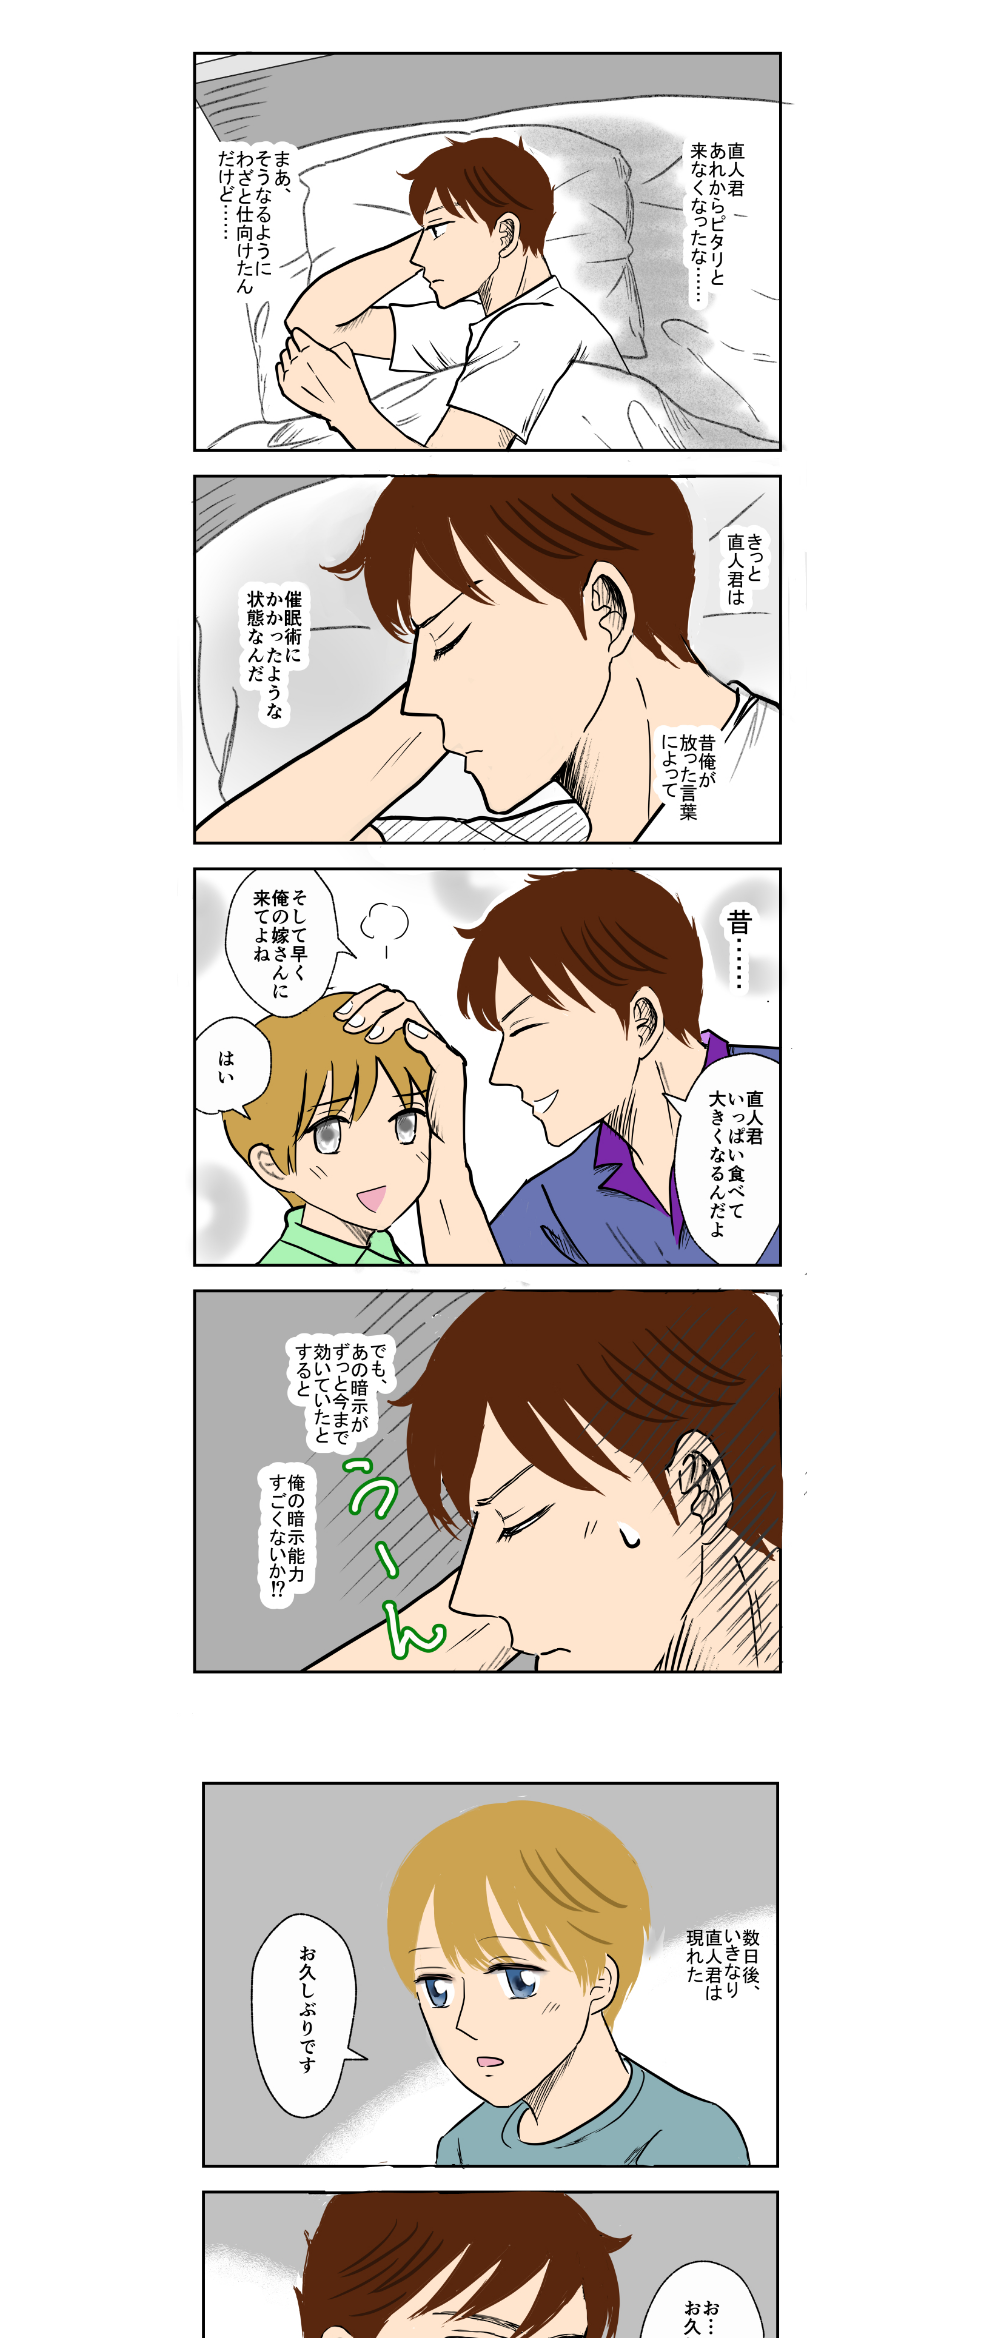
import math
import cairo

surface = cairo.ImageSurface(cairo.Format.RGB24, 984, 2338)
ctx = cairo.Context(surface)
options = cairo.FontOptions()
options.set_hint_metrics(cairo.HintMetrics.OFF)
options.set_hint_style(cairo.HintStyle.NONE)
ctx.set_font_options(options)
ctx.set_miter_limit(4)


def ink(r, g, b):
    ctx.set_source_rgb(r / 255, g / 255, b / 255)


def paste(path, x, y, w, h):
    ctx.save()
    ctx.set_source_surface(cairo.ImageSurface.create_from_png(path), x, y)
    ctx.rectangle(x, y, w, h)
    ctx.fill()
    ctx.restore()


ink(255, 255, 255)
ctx.paint()
paste("pic1.png", 177, 51, 630, 1623)
paste("pic2.png", 177, 1713, 603, 625)
surface.write_to_png("screenshot.png")
